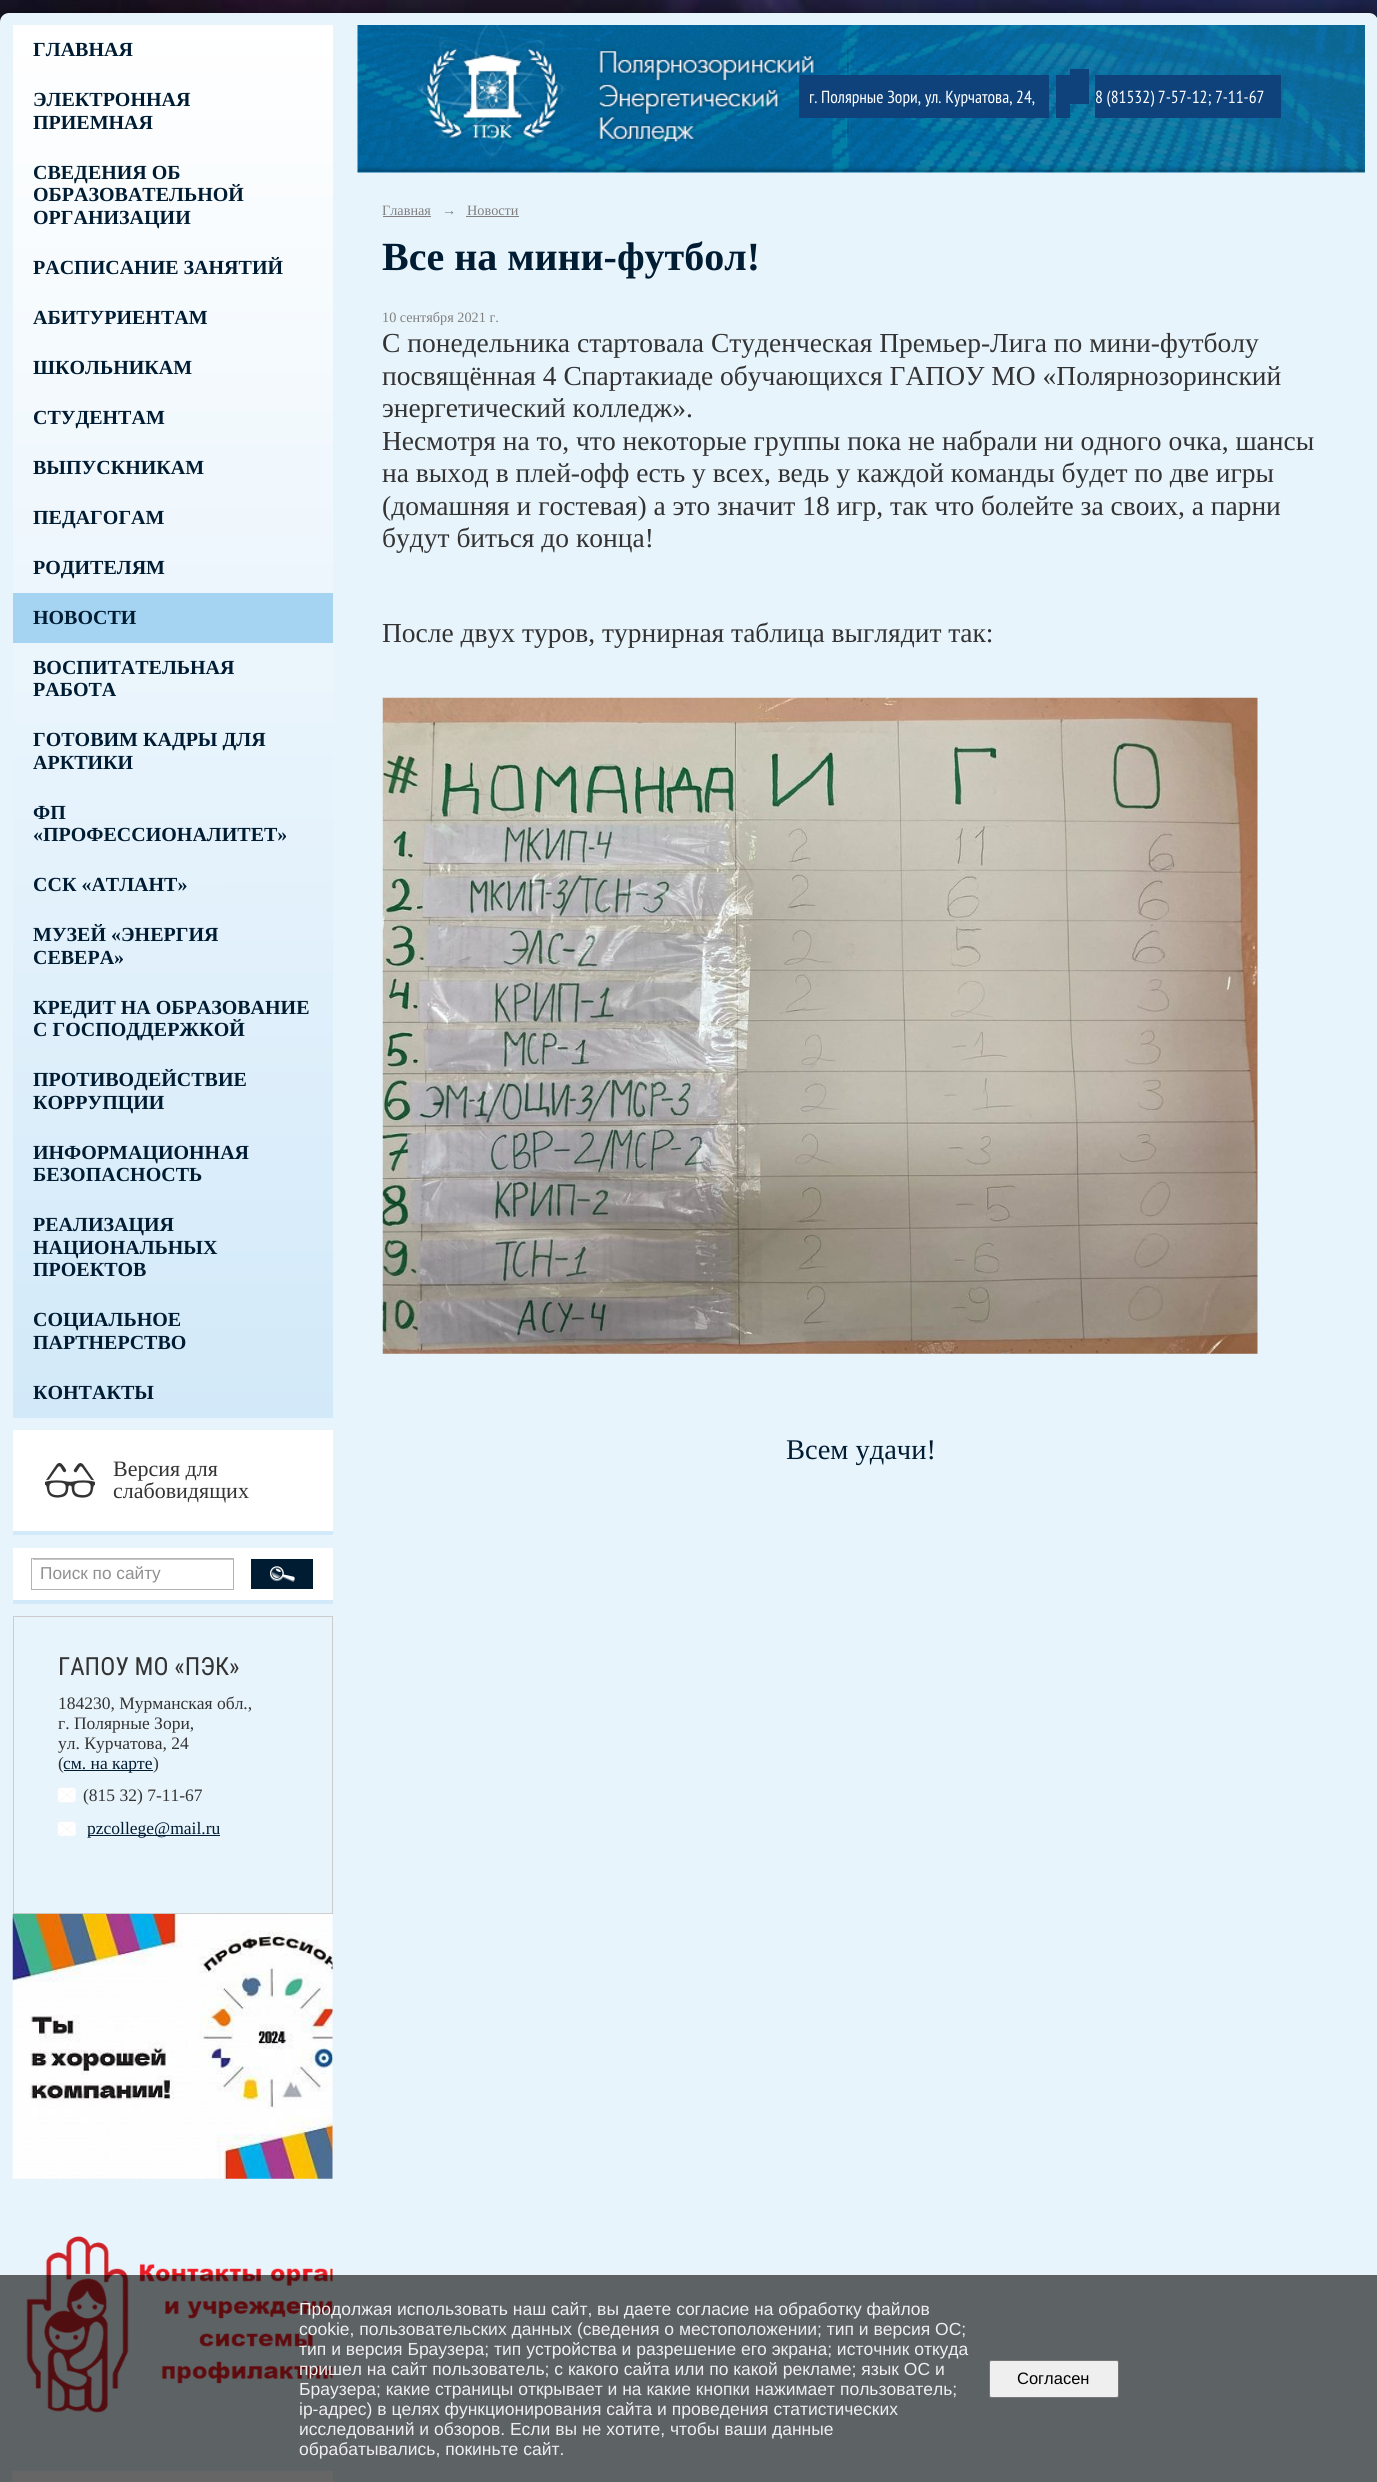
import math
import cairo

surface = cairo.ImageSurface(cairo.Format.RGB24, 1377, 2482)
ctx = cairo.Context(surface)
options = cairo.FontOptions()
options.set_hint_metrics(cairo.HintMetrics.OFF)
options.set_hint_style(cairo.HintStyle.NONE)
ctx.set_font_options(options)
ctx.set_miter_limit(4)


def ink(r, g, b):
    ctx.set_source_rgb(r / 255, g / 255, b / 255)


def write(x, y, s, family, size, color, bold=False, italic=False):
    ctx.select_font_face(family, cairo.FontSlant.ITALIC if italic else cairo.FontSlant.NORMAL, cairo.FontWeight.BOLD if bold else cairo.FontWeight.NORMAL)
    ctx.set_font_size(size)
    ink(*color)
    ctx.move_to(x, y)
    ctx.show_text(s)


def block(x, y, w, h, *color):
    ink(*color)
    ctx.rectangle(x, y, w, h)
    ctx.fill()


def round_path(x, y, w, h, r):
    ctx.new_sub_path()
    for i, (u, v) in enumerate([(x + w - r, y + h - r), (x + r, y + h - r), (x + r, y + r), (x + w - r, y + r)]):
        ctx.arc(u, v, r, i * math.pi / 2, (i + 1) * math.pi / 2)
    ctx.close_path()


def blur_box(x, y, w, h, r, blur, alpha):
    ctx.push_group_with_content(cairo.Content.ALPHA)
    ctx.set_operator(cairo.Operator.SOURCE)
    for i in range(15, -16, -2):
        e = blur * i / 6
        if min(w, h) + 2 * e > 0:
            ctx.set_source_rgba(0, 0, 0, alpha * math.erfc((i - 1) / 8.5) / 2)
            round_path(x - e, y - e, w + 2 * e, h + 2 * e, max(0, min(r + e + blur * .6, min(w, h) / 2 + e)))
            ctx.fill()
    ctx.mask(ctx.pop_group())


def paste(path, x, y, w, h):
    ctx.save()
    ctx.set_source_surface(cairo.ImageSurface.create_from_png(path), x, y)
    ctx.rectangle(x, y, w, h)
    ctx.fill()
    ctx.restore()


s1 = dict(family="Liberation Serif", size=20, color=(0, 28, 51), bold=True)
s2 = dict(family="Liberation Serif", size=22, color=(51, 51, 51))
s3 = dict(family="Liberation Sans", size=17.25, color=(144, 144, 144))
s4 = dict(family="Roboto Condensed", size=25, color=(51, 51, 51))
s5 = dict(family="Liberation Serif", size=17.5, color=(51, 51, 51))
s6 = dict(family="Liberation Serif", size=17.5, color=(0, 28, 51))
s7 = dict(family="PT Sans Narrow", size=17.5, color=(255, 255, 255))
s8 = dict(family="Liberation Serif", size=14.25, color=(128, 128, 128))
s9 = dict(family="Liberation Serif", size=14.25, color=(128, 128, 128), italic=True)
s10 = dict(family="Liberation Serif", size=40, color=(0, 28, 51), bold=True)
s11 = dict(family="Liberation Serif", size=27.5, color=(51, 51, 51))
s12 = dict(family="Liberation Serif", size=28.5, color=(0, 28, 51))
s13 = dict(family="Liberation Sans", size=17.5, color=(239, 239, 239))
s14 = dict(family="Liberation Sans", size=16.5, color=(0, 0, 0))

ink(255, 255, 255)
ctx.paint()
paste("pic1.png", 0, 0, 1377, 22)
ink(0, 0, 0)
blur_box(0, 13, 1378, 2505, 9, 9, 0.5)
ink(232, 244, 252)
round_path(0, 13, 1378, 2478, 9)
ctx.fill()
gradient = cairo.LinearGradient(172, 25, 173, 1418)
gradient.add_color_stop_rgba(0, 1, 1, 1, 1)
gradient.add_color_stop_rgba(1, 0.824, 0.914, 0.976, 1)
ctx.set_source(gradient)
ctx.rectangle(13, 25, 320, 1393)
ctx.fill()
write(33, 56, "ГЛАВНАЯ", **s1)
write(33, 106, "ЭЛЕКТРОННАЯ", **s1)
write(33, 129, "ПРИЕМНАЯ", **s1)
write(33, 179, "СВЕДЕНИЯ ОБ", **s1)
write(33, 201, "ОБРАЗОВАТЕЛЬНОЙ", **s1)
write(33, 224, "ОРГАНИЗАЦИИ", **s1)
write(33, 274, "РАСПИСАНИЕ ЗАНЯТИЙ", **s1)
write(33, 324, "АБИТУРИЕНТАМ", **s1)
write(33, 374, "ШКОЛЬНИКАМ", **s1)
write(33, 424, "СТУДЕНТАМ", **s1)
write(33, 474, "ВЫПУСКНИКАМ", **s1)
write(33, 524, "ПЕДАГОГАМ", **s1)
write(33, 574, "РОДИТЕЛЯМ", **s1)
block(13, 593, 320, 50, 165, 212, 243)
write(33, 624, "НОВОСТИ", **s1)
write(33, 674, "ВОСПИТАТЕЛЬНАЯ", **s1)
write(33, 696, "РАБОТА", **s1)
write(33, 746, "ГОТОВИМ КАДРЫ ДЛЯ", **s1)
write(33, 769, "АРКТИКИ", **s1)
write(33, 819, "ФП", **s1)
write(33, 841, "«ПРОФЕССИОНАЛИТЕТ»", **s1)
write(33, 891, "ССК «АТЛАНТ»", **s1)
write(33, 941, "МУЗЕЙ «ЭНЕРГИЯ", **s1)
write(33, 964, "СЕВЕРА»", **s1)
write(33, 1014, "КРЕДИТ НА ОБРАЗОВАНИЕ", **s1)
write(33, 1036, "С ГОСПОДДЕРЖКОЙ", **s1)
write(33, 1086, "ПРОТИВОДЕЙСТВИЕ", **s1)
write(33, 1109, "КОРРУПЦИИ", **s1)
write(33, 1159, "ИНФОРМАЦИОННАЯ", **s1)
write(33, 1181, "БЕЗОПАСНОСТЬ", **s1)
write(33, 1231, "РЕАЛИЗАЦИЯ", **s1)
write(33, 1254, "НАЦИОНАЛЬНЫХ", **s1)
write(33, 1276, "ПРОЕКТОВ", **s1)
write(33, 1326, "СОЦИАЛЬНОЕ", **s1)
write(33, 1349, "ПАРТНЕРСТВО", **s1)
write(33, 1399, "КОНТАКТЫ", **s1)
block(13, 1430, 320, 101, 255, 255, 255)
paste("pic2.png", 45, 1463, 50, 35)
block(13, 1531, 320, 4, 210, 233, 249)
write(113, 1476, "Версия для", **s2)
write(113, 1498, "слабовидящих", **s2)
block(13, 1548, 320, 52, 255, 255, 255)
block(13, 1600, 320, 4, 210, 233, 249)
block(33, 1559, 200, 1, 198, 198, 198)
ctx.rectangle(31.5, 1558.5, 202, 31)
ink(179, 179, 179)
ctx.set_line_width(1)
ctx.stroke()
write(40, 1579, "Поиск по сайту", **s3)
block(251, 1559, 62, 30, 0, 28, 51)
paste("pic3.png", 270, 1566, 25, 16)
ctx.rectangle(13.5, 1616.5, 319, 297)
ink(204, 204, 204)
ctx.stroke()
write(58, 1675, "ГАПОУ МО «ПЭК»", **s4)
write(58, 1709, "184230, Мурманская обл.,", **s5)
write(58, 1729, "г. Полярные Зори,", **s5)
write(58, 1749, "ул. Курчатова, 24", **s5)
write(58, 1769, "(", **s5)
block(64, 1770, 89, 1, 0, 28, 51)
write(63, 1769, "см. на карте", **s6)
write(153, 1769, ")", **s5)
paste("pic4.png", 57, 1787, 19, 16)
write(83, 1801, "(815 32) 7-11-67", **s5)
paste("pic5.png", 57, 1821, 19, 15)
block(88, 1835, 132, 1, 0, 28, 51)
write(87, 1834, "pzcollege@mail.ru", **s6)
paste("pic6.png", 12, 1913, 321, 266)
paste("pic7.png", 26, 2236, 307, 177)
block(12, 2471, 321, 11, 255, 255, 255)
paste("pic8.png", 357, 25, 1008, 148)
block(799, 75, 250, 43, 15, 66, 123)
write(809, 103, "г. Полярные Зори, ул. Курчатова, 24,", **s7)
block(1056, 75, 14, 43, 15, 66, 123)
block(1095, 75, 186, 43, 15, 66, 123)
write(1095, 103, "8 (81532) 7-57-12; 7-11-67", **s7)
block(1070, 69, 19, 35, 15, 66, 123)
write(382, 215, "Главная", **s8)
block(383, 216, 48, 1, 128, 128, 128)
write(442, 215, "→", **s9)
write(467, 215, "Новости", **s8)
block(466, 216, 53, 1, 128, 128, 128)
write(382, 270, "Все на мини-футбол!", **s10)
write(382, 322, "10 сентября 2021 г.", **s8)
write(382, 352, "С понедельника стартовала Студенческая Премьер-Лига по мини-футболу", **s11)
write(382, 385, "посвящённая 4 Спартакиаде обучающихся ГАПОУ МО «Полярнозоринский", **s11)
write(382, 417, "энергетический колледж».", **s11)
write(382, 450, "Несмотря на то, что некоторые группы пока не набрали ни одного очка, шансы", **s11)
write(382, 482, "на выход в плей-офф есть у всех, ведь у каждой команды будет по две игры", **s11)
write(382, 515, "(домашняя и гостевая) а это значит 18 игр, так что болейте за своих, а парни", **s11)
write(382, 547, "будут биться до конца!", **s11)
write(382, 642, "После двух туров, турнирная таблица выглядит так:", **s11)
paste("pic9.png", 382, 697, 876, 657)
write(786, 1459, "Всем удачи!", **s12)
ctx.set_source_rgba(0, 0, 0, 0.6)
ctx.rectangle(0, 2275, 1377, 207)
ctx.fill()
write(299, 2315, "Продолжая использовать наш сайт, вы даете согласие на обработку файлов", **s13)
write(299, 2335, "cookie, пользовательских данных (сведения о местоположении; тип и версия ОС;", **s13)
write(299, 2355, "тип и версия Браузера; тип устройства и разрешение его экрана; источник откуда", **s13)
write(299, 2375, "пришел на сайт пользователь; с какого сайта или по какой рекламе; язык ОС и", **s13)
write(299, 2395, "Браузера; какие страницы открывает и на какие кнопки нажимает пользователь;", **s13)
write(299, 2415, "ip-адрес) в целях функционирования сайта и проведения статистических", **s13)
write(299, 2435, "исследований и обзоров. Если вы не хотите, чтобы ваши данные", **s13)
write(299, 2455, "обрабатывались, покиньте сайт.", **s13)
round_path(989.5, 2360.5, 129, 37, 2)
ctx.fill_preserve()
ink(118, 118, 118)
ctx.stroke()
write(1017, 2384, "Согласен", **s14)
surface.write_to_png("screenshot.png")
